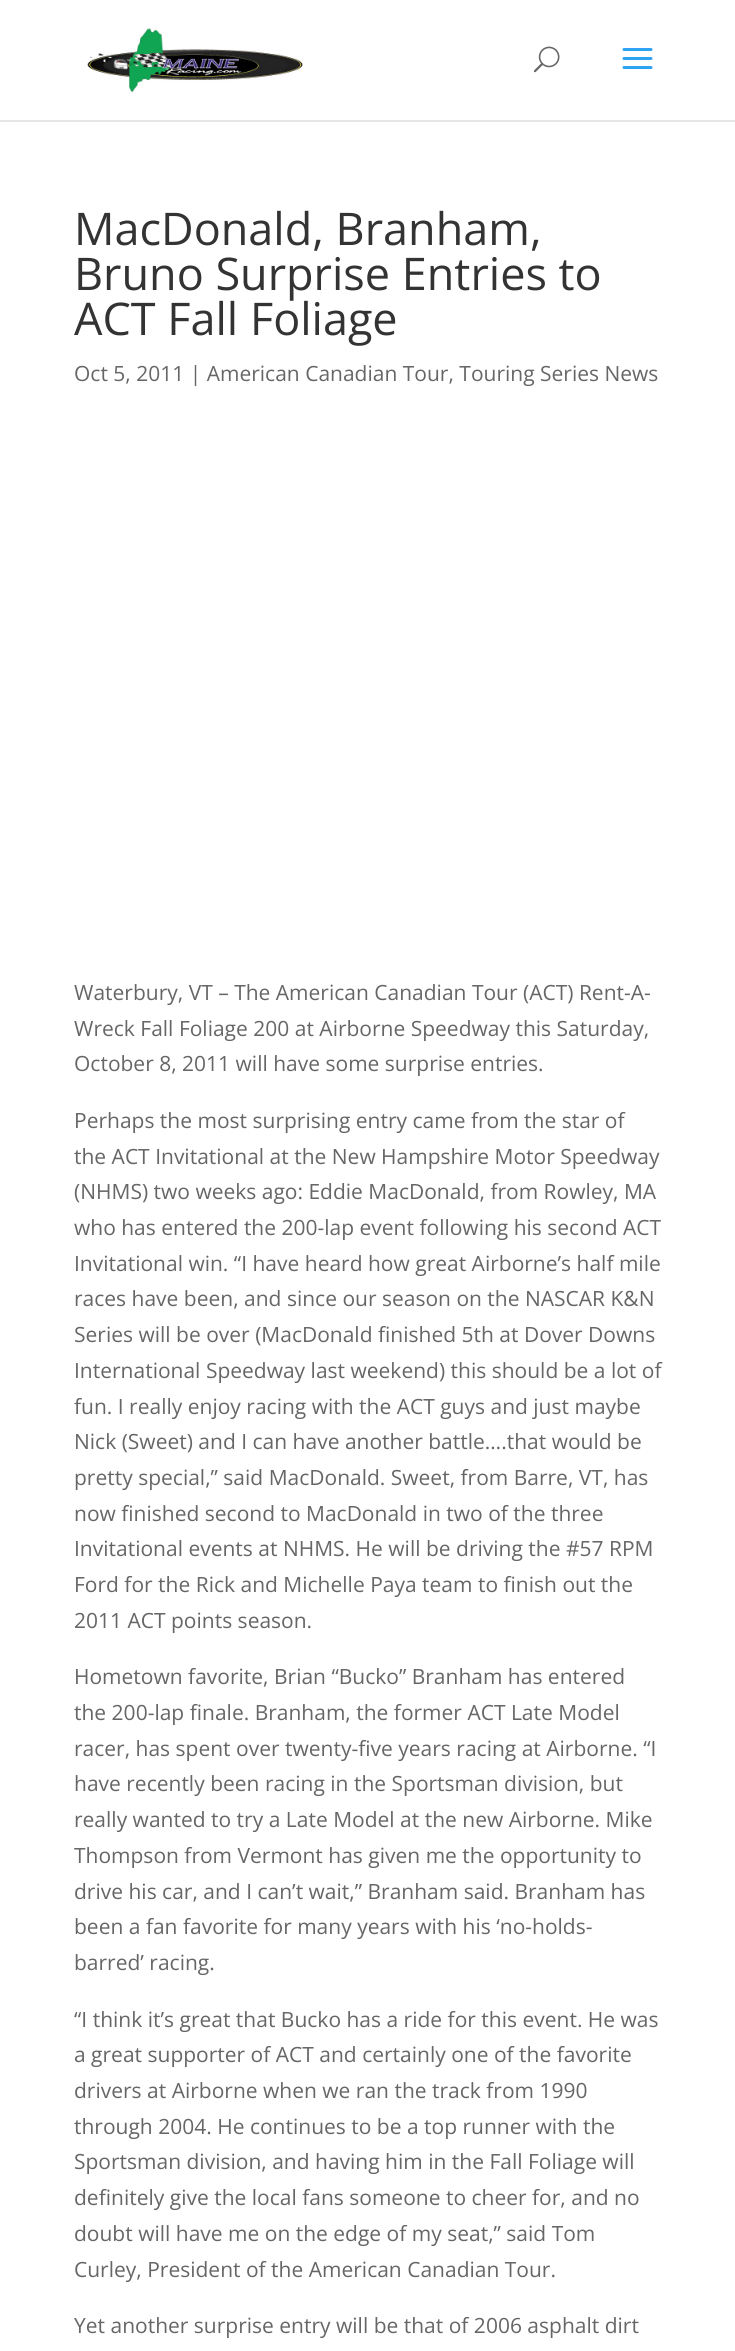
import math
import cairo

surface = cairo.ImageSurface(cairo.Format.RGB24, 735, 2351)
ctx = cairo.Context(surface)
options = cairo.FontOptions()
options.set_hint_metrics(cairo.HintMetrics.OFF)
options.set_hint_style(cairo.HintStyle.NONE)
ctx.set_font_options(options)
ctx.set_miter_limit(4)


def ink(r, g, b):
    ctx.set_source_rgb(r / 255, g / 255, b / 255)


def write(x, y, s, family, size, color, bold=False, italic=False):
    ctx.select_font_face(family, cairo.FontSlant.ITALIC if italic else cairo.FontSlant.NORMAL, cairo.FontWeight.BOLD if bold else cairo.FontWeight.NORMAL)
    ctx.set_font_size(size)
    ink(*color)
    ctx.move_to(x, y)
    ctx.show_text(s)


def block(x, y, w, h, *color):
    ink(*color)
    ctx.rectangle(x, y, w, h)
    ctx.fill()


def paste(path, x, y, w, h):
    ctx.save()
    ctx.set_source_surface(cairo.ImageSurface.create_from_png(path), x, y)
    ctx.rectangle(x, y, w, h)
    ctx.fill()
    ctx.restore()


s1 = dict(family="Open Sans", size=45, color=(51, 51, 51))
s2 = dict(family="Open Sans", size=21, color=(102, 102, 102))

ink(255, 255, 255)
ctx.paint()
block(0, 120, 735, 2, 230, 230, 230)
paste("pic1.png", 87, 27, 216, 66)
paste("pic2.png", 533, 46, 27, 27)
paste("pic3.png", 622, 48, 31, 21)
write(74, 245, "MacDonald, Branham,", **s1)
write(74, 290, "Bruno Surprise Entries to", **s1)
write(74, 335, "ACT Fall Foliage", **s1)
write(74, 381, "Oct 5, 2011 | American Canadian Tour, Touring Series News", **s2)
write(74, 1000, "Waterbury, VT – The American Canadian Tour (ACT) Rent-A-", **s2)
write(74, 1036, "Wreck Fall Foliage 200 at Airborne Speedway this Saturday,", **s2)
write(74, 1071, "October 8, 2011 will have some surprise entries.", **s2)
write(74, 1128, "Perhaps the most surprising entry came from the star of", **s2)
write(74, 1164, "the ACT Invitational at the New Hampshire Motor Speedway", **s2)
write(74, 1199, "(NHMS) two weeks ago: Eddie MacDonald, from Rowley, MA", **s2)
write(74, 1235, "who has entered the 200-lap event following his second ACT", **s2)
write(74, 1271, "Invitational win. “I have heard how great Airborne’s half mile", **s2)
write(74, 1306, "races have been, and since our season on the NASCAR K&N", **s2)
write(74, 1342, "Series will be over (MacDonald finished 5th at Dover Downs", **s2)
write(74, 1378, "International Speedway last weekend) this should be a lot of", **s2)
write(74, 1414, "fun. I really enjoy racing with the ACT guys and just maybe", **s2)
write(74, 1449, "Nick (Sweet) and I can have another battle….that would be", **s2)
write(74, 1485, "pretty special,” said MacDonald. Sweet, from Barre, VT, has", **s2)
write(74, 1521, "now finished second to MacDonald in two of the three", **s2)
write(74, 1556, "Invitational events at NHMS. He will be driving the #57 RPM", **s2)
write(74, 1592, "Ford for the Rick and Michelle Paya team to finish out the", **s2)
write(74, 1628, "2011 ACT points season.", **s2)
write(74, 1684, "Hometown favorite, Brian “Bucko” Branham has entered", **s2)
write(74, 1720, "the 200-lap finale. Branham, the former ACT Late Model", **s2)
write(74, 1756, "racer, has spent over twenty-five years racing at Airborne. “I", **s2)
write(74, 1791, "have recently been racing in the Sportsman division, but", **s2)
write(74, 1827, "really wanted to try a Late Model at the new Airborne. Mike", **s2)
write(74, 1863, "Thompson from Vermont has given me the opportunity to", **s2)
write(74, 1899, "drive his car, and I can’t wait,” Branham said. Branham has", **s2)
write(74, 1934, "been a fan favorite for many years with his ‘no-holds-", **s2)
write(74, 1970, "barred’ racing.", **s2)
write(74, 2027, "“I think it’s great that Bucko has a ride for this event. He was", **s2)
write(74, 2062, "a great supporter of ACT and certainly one of the favorite", **s2)
write(74, 2098, "drivers at Airborne when we ran the track from 1990", **s2)
write(74, 2134, "through 2004. He continues to be a top runner with the", **s2)
write(74, 2169, "Sportsman division, and having him in the Fall Foliage will", **s2)
write(74, 2205, "definitely give the local fans someone to cheer for, and no", **s2)
write(74, 2241, "doubt will have me on the edge of my seat,” said Tom", **s2)
write(74, 2277, "Curley, President of the American Canadian Tour.", **s2)
write(74, 2333, "Yet another surprise entry will be that of 2006 asphalt dirt", **s2)
surface.write_to_png("screenshot.png")
